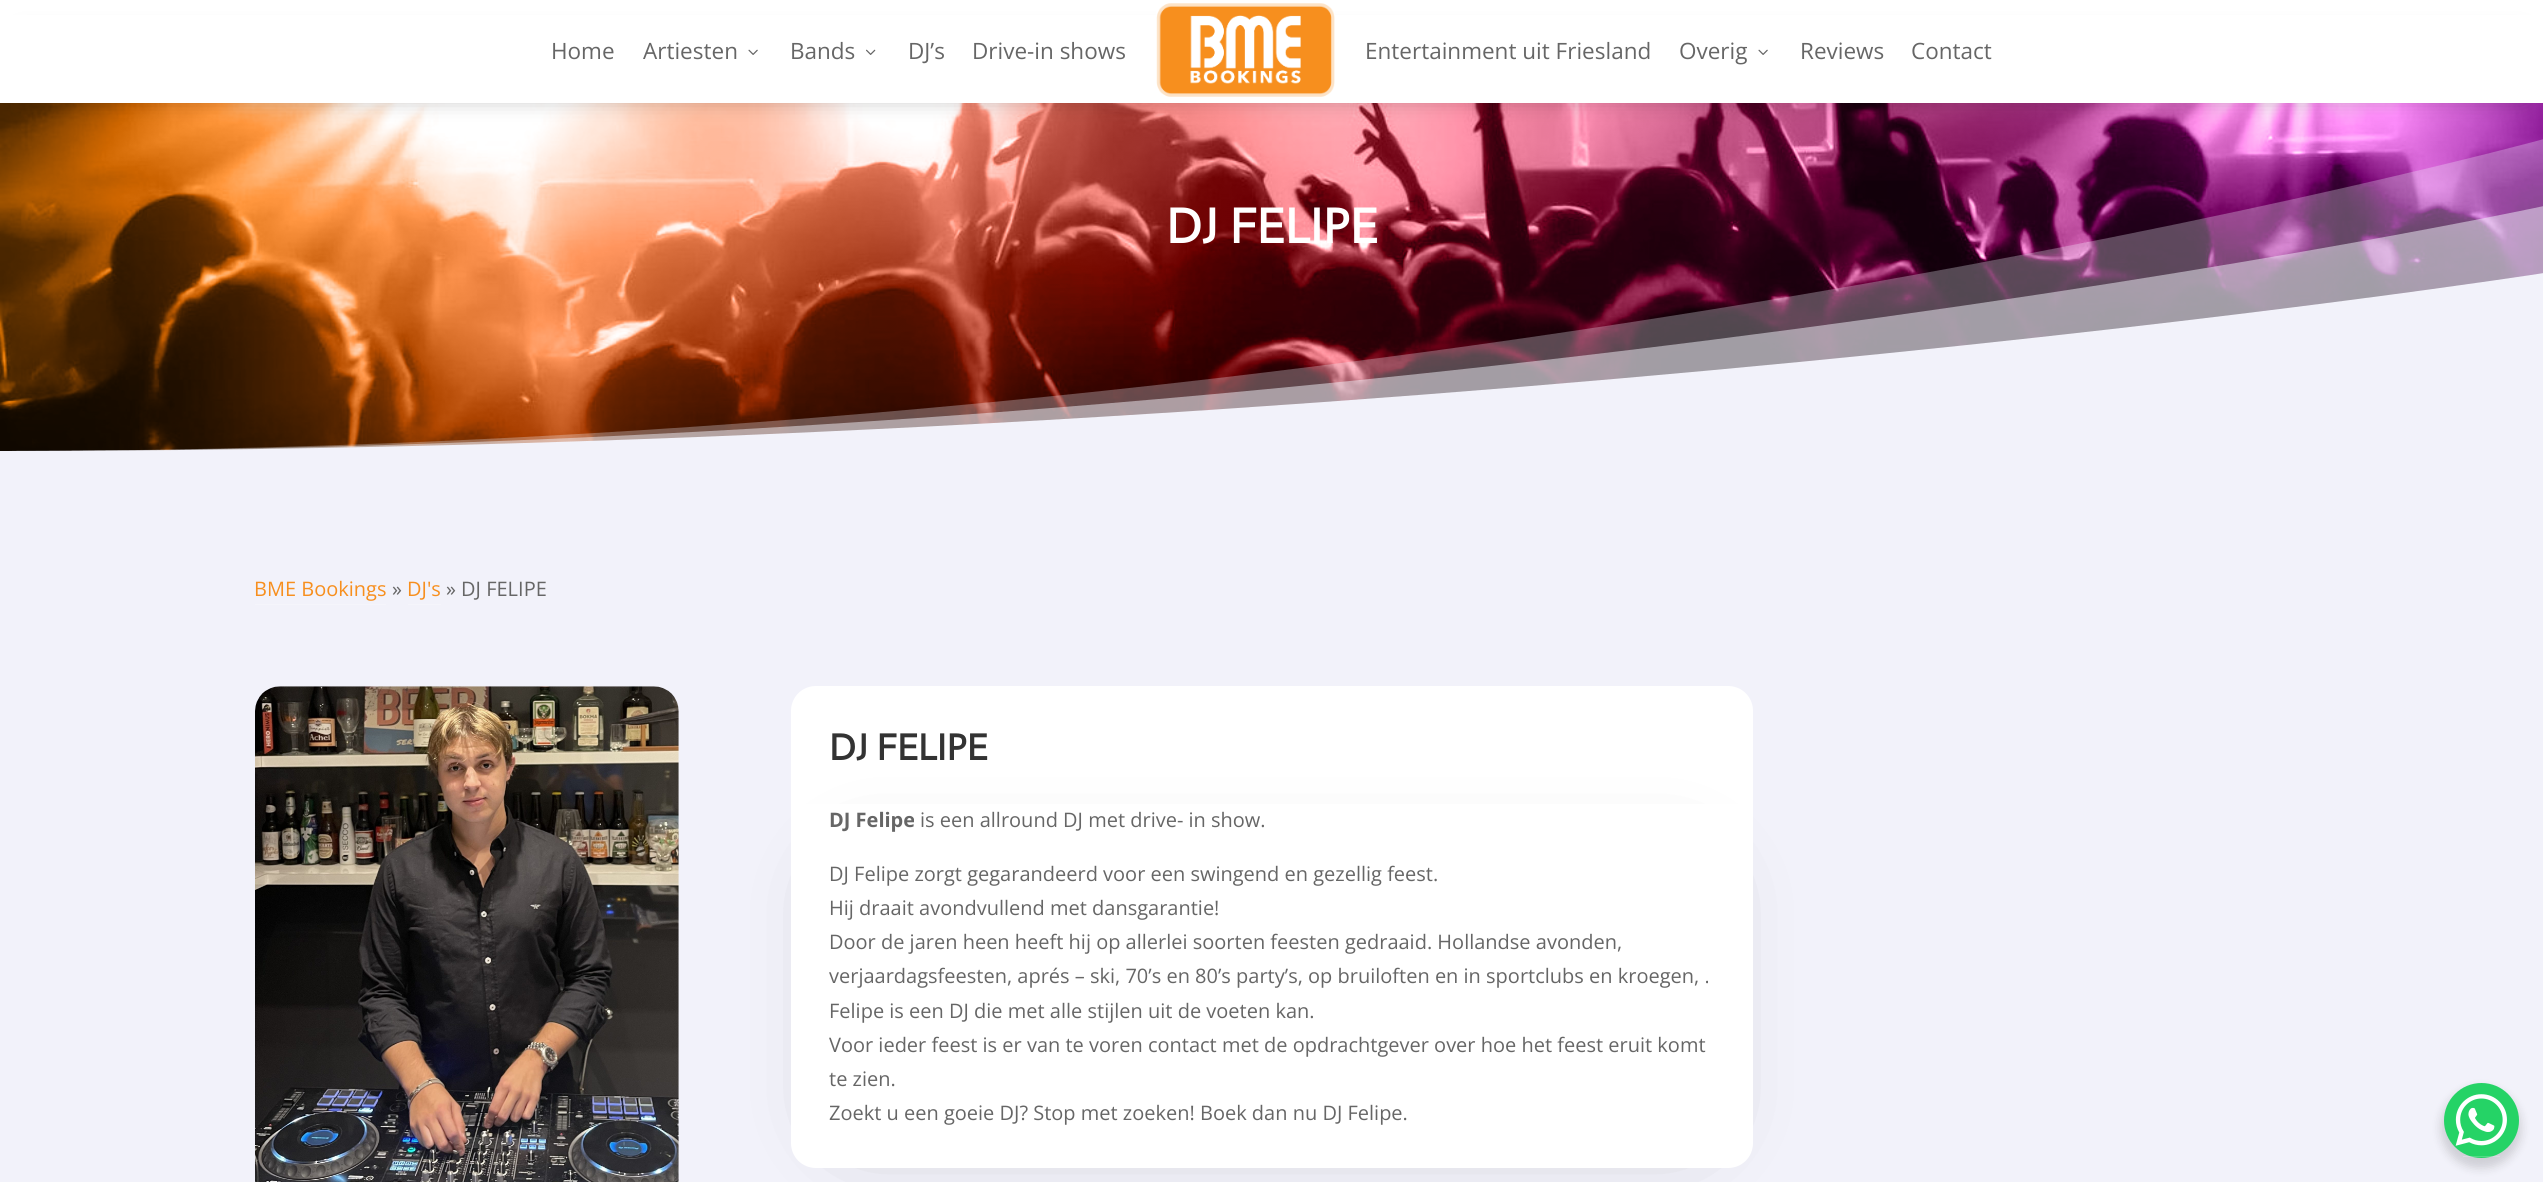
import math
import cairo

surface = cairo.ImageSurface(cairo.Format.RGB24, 2543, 1182)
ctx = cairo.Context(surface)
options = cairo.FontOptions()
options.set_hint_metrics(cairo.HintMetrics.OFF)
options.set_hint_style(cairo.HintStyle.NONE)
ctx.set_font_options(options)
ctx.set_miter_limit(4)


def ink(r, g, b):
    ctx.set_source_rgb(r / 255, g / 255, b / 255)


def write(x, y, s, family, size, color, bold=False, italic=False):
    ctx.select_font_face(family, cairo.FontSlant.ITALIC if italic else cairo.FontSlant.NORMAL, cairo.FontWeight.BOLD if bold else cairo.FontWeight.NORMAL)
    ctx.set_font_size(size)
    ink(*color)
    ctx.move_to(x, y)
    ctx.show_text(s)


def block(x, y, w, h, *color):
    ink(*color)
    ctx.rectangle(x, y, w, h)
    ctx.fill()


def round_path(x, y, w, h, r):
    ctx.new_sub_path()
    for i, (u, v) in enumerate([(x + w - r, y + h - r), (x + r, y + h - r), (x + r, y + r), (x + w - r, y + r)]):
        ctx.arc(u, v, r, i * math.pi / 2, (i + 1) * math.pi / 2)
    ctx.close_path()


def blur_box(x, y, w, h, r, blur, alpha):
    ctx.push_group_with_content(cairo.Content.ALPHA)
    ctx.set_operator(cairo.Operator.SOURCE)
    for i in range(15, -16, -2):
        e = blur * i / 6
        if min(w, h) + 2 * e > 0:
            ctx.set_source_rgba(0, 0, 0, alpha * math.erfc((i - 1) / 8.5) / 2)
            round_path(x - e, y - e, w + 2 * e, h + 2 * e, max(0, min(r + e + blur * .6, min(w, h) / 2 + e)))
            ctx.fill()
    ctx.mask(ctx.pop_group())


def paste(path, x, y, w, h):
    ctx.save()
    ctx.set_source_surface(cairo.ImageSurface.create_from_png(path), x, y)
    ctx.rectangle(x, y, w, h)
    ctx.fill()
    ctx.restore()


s1 = dict(family="Open Sans", size=22.5, color=(102, 102, 102))
s2 = dict(family="Actor", size=50, color=(255, 255, 255), bold=True)
s3 = dict(family="Open Sans", size=20, color=(247, 143, 30))
s4 = dict(family="Open Sans", size=20, color=(102, 102, 102))
s5 = dict(family="Actor", size=37.5, color=(51, 51, 51), bold=True)
s6 = dict(family="Open Sans", size=20, color=(102, 102, 102), bold=True)

ink(255, 255, 255)
ctx.paint()
paste("pic4.png", 0, 103, 2543, 348)
ink(0, 0, 0)
blur_box(20, 35, 2504, 63, 0, 11, 0.3)
block(0, 15, 2543, 88, 255, 255, 255)
write(551, 59, "Home", **s1)
write(643, 59, "Artiesten", **s1)
paste("pic1.png", 748, 49, 10, 6)
write(790, 59, "Bands", **s1)
paste("pic2.png", 866, 49, 10, 6)
write(908, 59, "DJ’s", **s1)
write(972, 59, "Drive-in shows", **s1)
paste("pic3.png", 1156, 3, 179, 94)
write(1365, 59, "Entertainment uit Friesland", **s1)
write(1679, 59, "Overig", **s1)
paste("pic1.png", 1758, 49, 10, 6)
write(1800, 59, "Reviews", **s1)
write(1911, 59, "Contact", **s1)
ctx.set_source_rgba(0.949, 0.949, 0.98, 0.3)
ctx.new_path()
ctx.move_to(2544, 451)
ctx.line_to(0, 451)
ctx.curve_to(1405, 451, 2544, 139, 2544, 139)
ctx.close_path()
ctx.fill()
ctx.set_source_rgba(0.949, 0.949, 0.98, 0.5)
ctx.new_path()
ctx.move_to(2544, 451)
ctx.line_to(0, 451)
ctx.curve_to(1405, 451, 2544, 206, 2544, 206)
ctx.close_path()
ctx.fill()
ink(242, 242, 250)
ctx.new_path()
ctx.move_to(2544, 451)
ctx.line_to(0, 451)
ctx.curve_to(1405, 451, 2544, 273, 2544, 273)
ctx.close_path()
ctx.fill()
write(1166, 243, "DJ FELIPE", **s2)
gradient = cairo.LinearGradient(1251, 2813, 1293, 429)
gradient.add_color_stop_rgba(0, 1, 1, 1, 1)
gradient.add_color_stop_rgba(0, 0.949, 0.949, 0.98, 1)
ctx.set_source(gradient)
ctx.rectangle(0, 451, 2543, 731)
ctx.fill()
write(254, 596, "BME Bookings", **s3)
block(255, 604, 131, 1, 245, 245, 251)
write(392, 596, "»", **s4)
write(407, 596, "DJ's", **s3)
block(408, 604, 33, 1, 245, 245, 251)
write(446, 596, "» DJ FELIPE", **s4)
paste("pic5.png", 255, 686, 424, 496)
ink(255, 255, 255)
ctx.new_path()
ctx.move_to(816, 686)
ctx.line_to(1728, 686)
ctx.curve_to(1742, 686, 1753, 697, 1753, 711)
ctx.line_to(1753, 804)
ctx.line_to(791, 804)
ctx.line_to(791, 711)
ctx.curve_to(791, 697, 802, 686, 816, 686)
ctx.close_path()
ctx.fill()
write(829, 760, "DJ FELIPE", **s5)
ink(0, 0, 0)
blur_box(858, 885, 828, 231, 0, 50, 0.3)
ink(255, 255, 255)
ctx.new_path()
ctx.move_to(791, 804)
ctx.line_to(1753, 804)
ctx.line_to(1753, 1143)
ctx.curve_to(1753, 1157, 1742, 1168, 1728, 1168)
ctx.line_to(816, 1168)
ctx.curve_to(802, 1168, 791, 1157, 791, 1143)
ctx.close_path()
ctx.fill()
write(829, 827, "DJ Felipe", **s6)
write(920, 827, "is een allround DJ met drive- in show.", **s4)
write(829, 881, "DJ Felipe zorgt gegarandeerd voor een swingend en gezellig feest.", **s4)
write(829, 915, "Hij draait avondvullend met dansgarantie!", **s4)
write(829, 949, "Door de jaren heen heeft hij op allerlei soorten feesten gedraaid. Hollandse avonden,", **s4)
write(829, 983, "verjaardagsfeesten, aprés – ski, 70’s en 80’s party’s, op bruiloften en in sportclubs en kroegen, .", **s4)
write(829, 1018, "Felipe is een DJ die met alle stijlen uit de voeten kan.", **s4)
write(829, 1052, "Voor ieder feest is er van te voren contact met de opdrachtgever over hoe het feest eruit komt", **s4)
write(829, 1086, "te zien.", **s4)
write(829, 1120, "Zoekt u een goeie DJ? Stop met zoeken! Boek dan nu DJ Felipe.", **s4)
ink(0, 0, 0)
blur_box(2441, 1088, 80, 80, 40, 5, 0.15)
ink(37, 211, 102)
ctx.arc(2481.5, 1120.5, 37.5, 0, 2 * math.pi)
ctx.fill()
paste("pic6.png", 2455, 1094, 52, 52)
ctx.set_source_rgba(1, 1, 1, 0.2)
ctx.rectangle(2463, 1156, 37, 1)
ctx.fill()
surface.write_to_png("screenshot.png")
